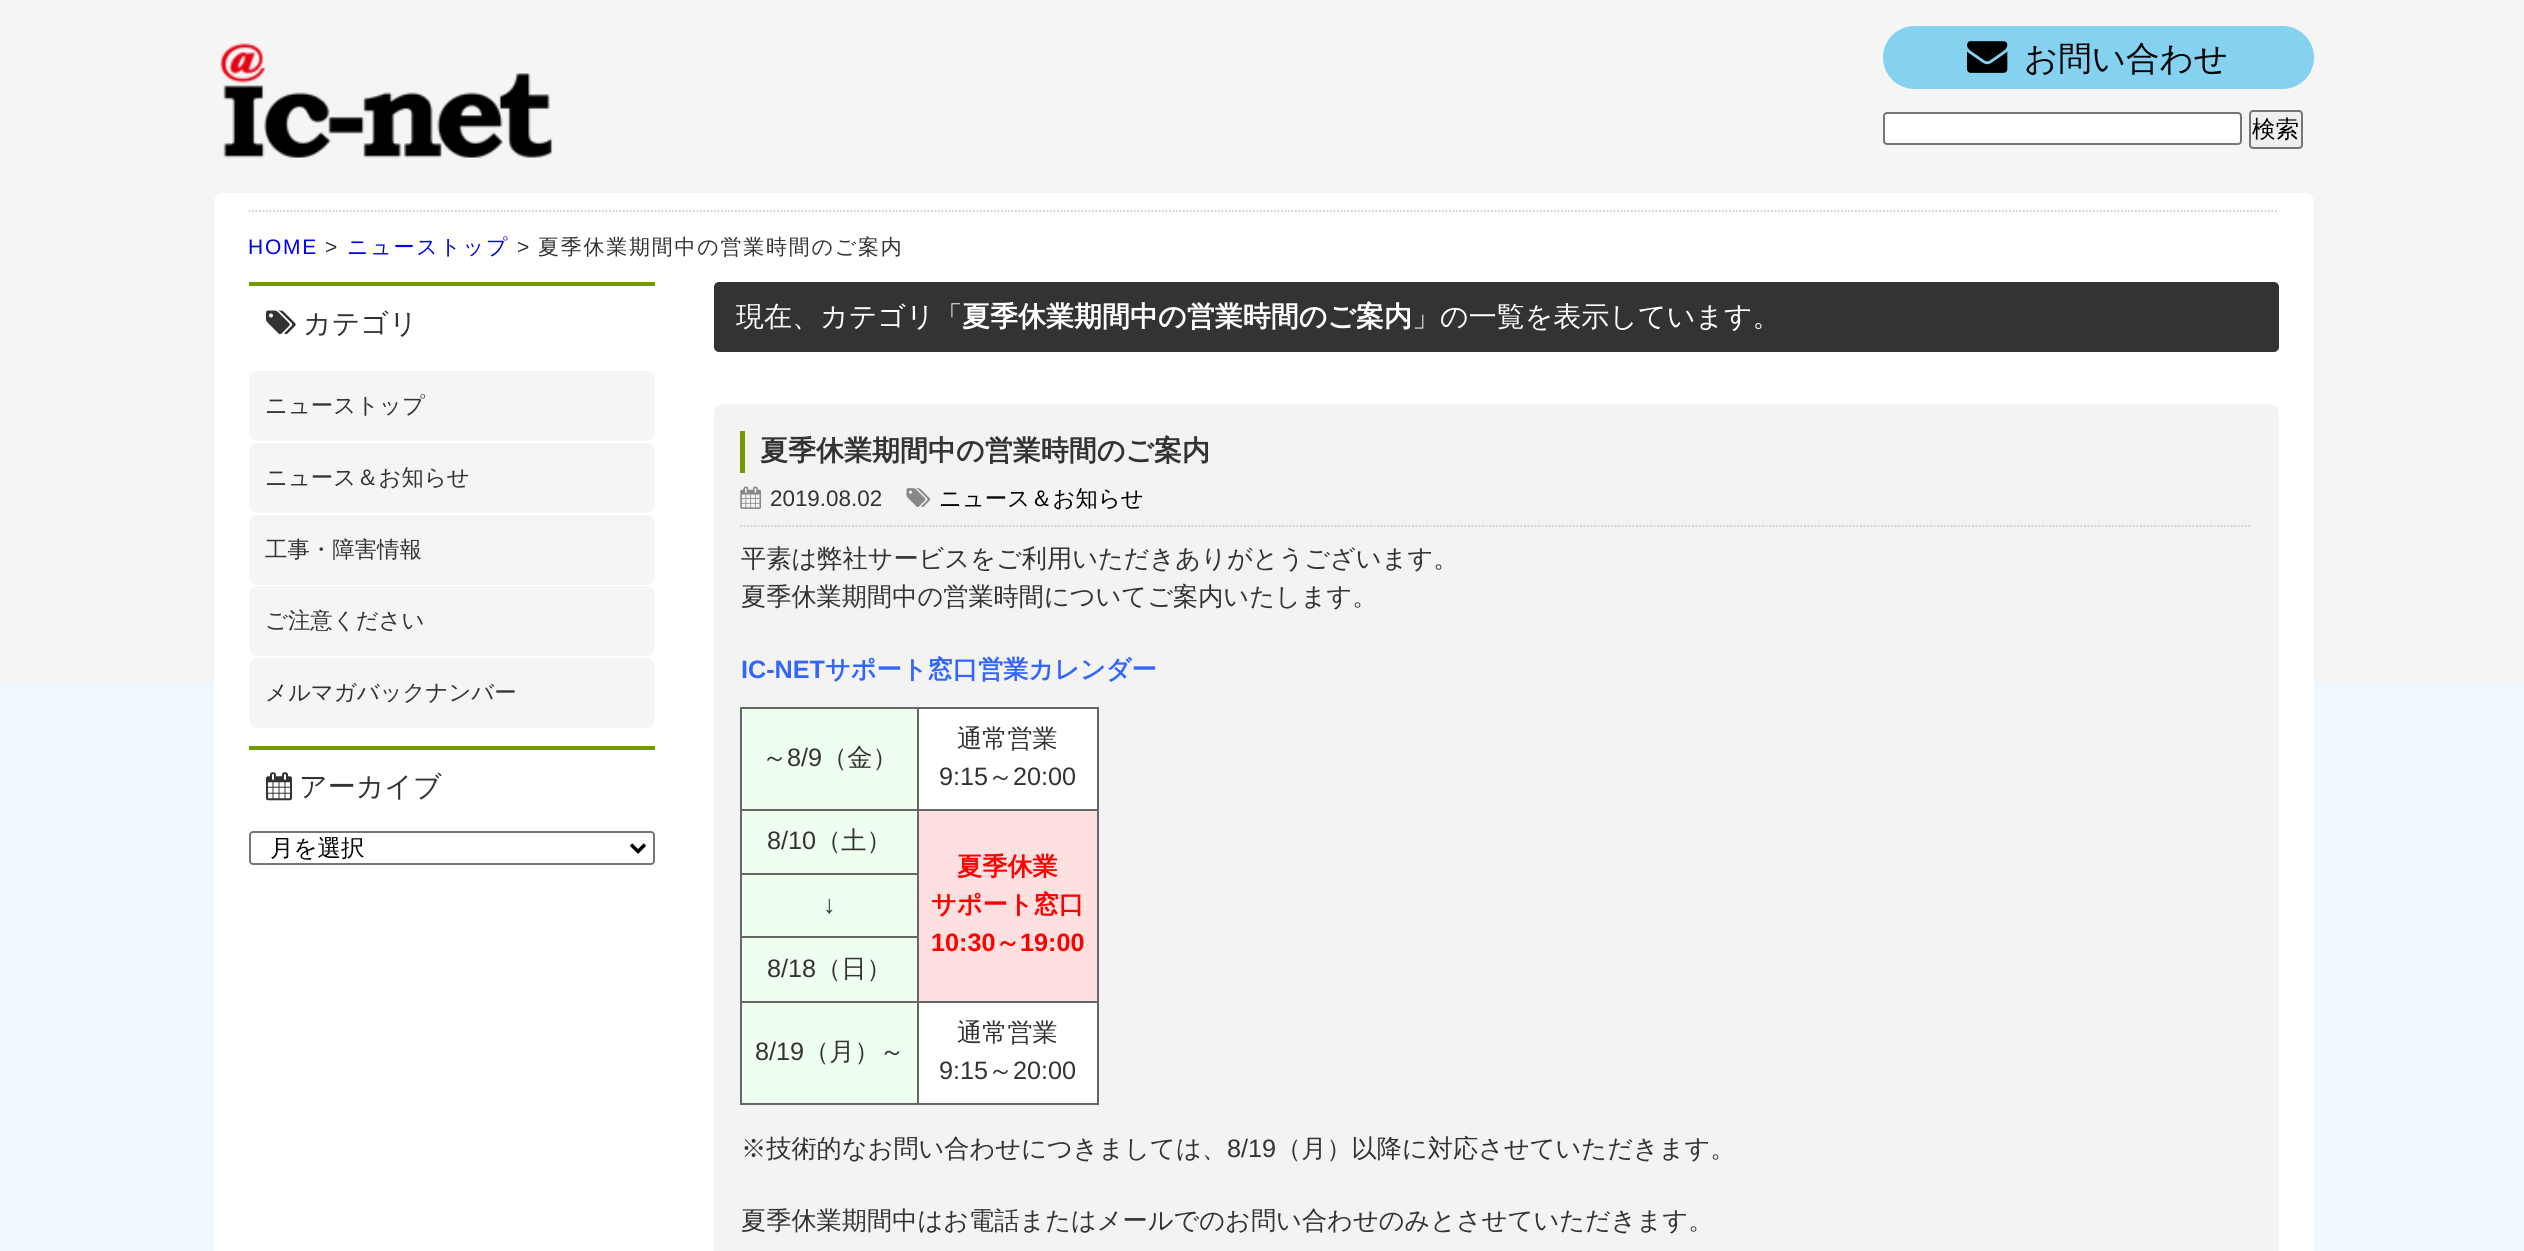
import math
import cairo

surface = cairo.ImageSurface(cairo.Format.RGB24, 2524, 1251)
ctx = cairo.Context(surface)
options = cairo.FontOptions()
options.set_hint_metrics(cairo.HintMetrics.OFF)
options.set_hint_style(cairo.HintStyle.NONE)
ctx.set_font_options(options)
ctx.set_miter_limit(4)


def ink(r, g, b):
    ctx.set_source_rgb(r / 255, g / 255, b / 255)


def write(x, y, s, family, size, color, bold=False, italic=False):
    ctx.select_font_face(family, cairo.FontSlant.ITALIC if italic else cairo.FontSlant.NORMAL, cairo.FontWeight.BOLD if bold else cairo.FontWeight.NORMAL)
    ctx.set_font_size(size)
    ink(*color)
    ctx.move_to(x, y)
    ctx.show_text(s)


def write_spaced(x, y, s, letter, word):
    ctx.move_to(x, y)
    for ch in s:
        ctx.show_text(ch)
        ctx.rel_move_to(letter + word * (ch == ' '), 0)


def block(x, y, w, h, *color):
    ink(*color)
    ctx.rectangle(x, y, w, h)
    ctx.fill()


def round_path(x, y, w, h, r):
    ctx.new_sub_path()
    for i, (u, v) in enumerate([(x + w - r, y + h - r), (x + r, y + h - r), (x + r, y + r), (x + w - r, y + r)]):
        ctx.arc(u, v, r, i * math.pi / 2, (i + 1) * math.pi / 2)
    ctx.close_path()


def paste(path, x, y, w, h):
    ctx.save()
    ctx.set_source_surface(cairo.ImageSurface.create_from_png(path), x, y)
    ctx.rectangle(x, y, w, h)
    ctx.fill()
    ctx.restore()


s1 = dict(family="WenQuanYi Zen Hei Medium", size=33.5, color=(0, 0, 0))
s2 = dict(family="WenQuanYi Zen Hei Medium", size=23.5, color=(0, 0, 0))
s3 = dict(family="WenQuanYi Zen Hei Medium", size=28, color=(51, 51, 51))
s4 = dict(family="WenQuanYi Zen Hei Medium", size=22.4, color=(51, 51, 51))
s5 = dict(family="WenQuanYi Zen Hei Medium", size=28, color=(255, 255, 255))
s6 = dict(family="WenQuanYi Zen Hei", size=28, color=(255, 255, 255), bold=True)
s7 = dict(family="WenQuanYi Zen Hei", size=28, color=(51, 51, 51), bold=True)
s8 = dict(family="Liberation Sans", size=22.4, color=(51, 51, 51))
s9 = dict(family="WenQuanYi Zen Hei Medium", size=22.4, color=(0, 0, 0))
s10 = dict(family="WenQuanYi Zen Hei Medium", size=25.2, color=(51, 51, 51))
s11 = dict(family="Liberation Sans", size=25.2, color=(51, 102, 255), bold=True)
s12 = dict(family="WenQuanYi Zen Hei", size=25.2, color=(51, 102, 255), bold=True)
s13 = dict(family="Liberation Sans", size=25.2, color=(51, 51, 51))
s14 = dict(family="WenQuanYi Zen Hei", size=25.2, color=(255, 0, 0), bold=True)
s15 = dict(family="Liberation Sans", size=25.2, color=(255, 0, 0), bold=True)

ink(240, 248, 255)
ctx.paint()
block(0, 0, 2524, 683, 245, 245, 245)
paste("pic1.png", 220, 43, 333, 115)
ink(132, 209, 240)
round_path(1883, 26, 431, 63, 31.5)
ctx.fill()
paste("pic2.png", 1967, 41, 41, 32)
write(2024, 70, "お問い合わせ", **s1)
ink(255, 255, 255)
round_path(1884, 113, 357, 31, 3)
ctx.fill_preserve()
ink(118, 118, 118)
ctx.stroke()
ink(239, 239, 239)
round_path(2250, 111, 52, 37, 3)
ctx.fill_preserve()
ink(118, 118, 118)
ctx.stroke()
write(2252, 137, "検索", **s2)
ink(255, 255, 255)
round_path(214, 193, 2100, 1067, 9)
ctx.fill()
ctx.new_path()
ctx.move_to(248.5, 211)
ctx.line_to(2278.5, 211)
ink(204, 204, 204)
ctx.set_line_width(1.8)
ctx.set_dash([1.75, 1.75])
ctx.stroke()
ctx.select_font_face("Liberation Sans")
ctx.set_font_size(21)
ink(0, 0, 238)
write_spaced(248, 254, "HOME", 1.75, 0)
ink(51, 51, 51)
write_spaced(325, 254, ">", 1.75, 0)
ctx.select_font_face("WenQuanYi Zen Hei Medium")
ink(0, 0, 238)
write_spaced(347, 254, "ニューストップ", 1.75, 0)
ctx.select_font_face("Liberation Sans")
ink(51, 51, 51)
write_spaced(517, 254, ">", 1.75, 0)
ctx.select_font_face("WenQuanYi Zen Hei Medium")
write_spaced(538, 254, "夏季休業期間中の営業時間のご案内", 1.75, 0)
block(249, 282, 406, 4, 114, 155, 0)
paste("pic3.png", 266, 310, 30, 25)
write(303, 333, "カテゴリ", **s3)
ink(245, 245, 245)
round_path(249, 371, 406, 70, 9)
ctx.fill()
write(265, 413, "ニューストップ", **s4)
ink(245, 245, 245)
round_path(249, 443, 406, 70, 9)
ctx.fill()
write(265, 485, "ニュース＆お知らせ", **s4)
ink(245, 245, 245)
round_path(249, 515, 406, 70, 9)
ctx.fill()
write(265, 557, "工事・障害情報", **s4)
ink(245, 245, 245)
round_path(249, 586, 406, 70, 9)
ctx.fill()
write(265, 628, "ご注意ください", **s4)
ink(245, 245, 245)
round_path(249, 658, 406, 70, 9)
ctx.fill()
write(265, 700, "メルマガバックナンバー", **s4)
block(249, 746, 406, 4, 114, 155, 0)
paste("pic4.png", 266, 772, 26, 29)
write(299, 796, "アーカイブ", **s3)
round_path(250, 832, 404, 32, 3)
ink(118, 118, 118)
ctx.set_line_width(2)
ctx.set_dash([])
ctx.stroke()
ctx.new_path()
ctx.move_to(631, 844.5)
ctx.line_to(638, 851.5)
ctx.line_to(645, 844.5)
ink(0, 0, 0)
ctx.set_line_width(3.5)
ctx.stroke()
write(270, 856, "月を選択", **s2)
ink(51, 51, 51)
round_path(714, 282, 1565, 70, 5)
ctx.fill()
write(736, 326, "現在、カテゴリ「", **s5)
write(962, 326, "夏季休業期間中の営業時間のご案内", **s6)
write(1412, 326, "」の一覧を表示しています。", **s5)
ink(243, 243, 243)
round_path(714, 404, 1565, 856, 9)
ctx.fill()
block(740, 431, 5, 42, 114, 155, 0)
write(760, 460, "夏季休業期間中の営業時間のご案内", **s7)
ctx.new_path()
ctx.move_to(740, 526)
ctx.line_to(2252, 526)
ink(204, 204, 204)
ctx.set_line_width(1.8)
ctx.set_dash([1.75, 1.75])
ctx.stroke()
paste("pic5.png", 740, 486, 22, 23)
write(770, 506, "2019.08.02", **s8)
paste("pic6.png", 906, 488, 25, 19)
write(939, 506, "ニュース＆お知らせ", **s9)
write(741, 567, "平素は弊社サービスをご利用いただきありがとうございます。", **s10)
write(741, 605, "夏季休業期間中の営業時間についてご案内いたします。", **s10)
write(741, 678, "IC-NET", **s11)
write(825, 678, "サポート窓口営業カレンダー", **s12)
block(742, 709, 175, 100, 239, 255, 239)
block(917, 707, 182, 2, 102, 102, 102)
block(917, 809, 182, 2, 102, 102, 102)
block(740, 873, 179, 2, 102, 102, 102)
block(740, 936, 179, 2, 102, 102, 102)
block(917, 1001, 182, 2, 102, 102, 102)
block(1097, 1001, 2, 103, 102, 102, 102)
block(917, 1103, 182, 2, 102, 102, 102)
block(917, 1001, 2, 103, 102, 102, 102)
block(740, 1001, 179, 2, 102, 102, 102)
block(917, 809, 2, 194, 102, 102, 102)
block(740, 809, 179, 2, 102, 102, 102)
block(917, 707, 2, 103, 102, 102, 102)
block(740, 707, 179, 2, 102, 102, 102)
block(740, 1103, 179, 2, 102, 102, 102)
block(740, 1001, 2, 103, 102, 102, 102)
block(740, 936, 2, 67, 102, 102, 102)
block(740, 873, 2, 65, 102, 102, 102)
block(740, 809, 2, 66, 102, 102, 102)
block(740, 707, 2, 103, 102, 102, 102)
write(762, 766, "～", **s10)
write(787, 766, "8/9", **s13)
write(822, 766, "（金）", **s10)
block(919, 709, 178, 100, 255, 255, 255)
block(1097, 809, 2, 194, 102, 102, 102)
block(1097, 707, 2, 103, 102, 102, 102)
write(957, 747, "通常営業", **s10)
write(939, 785, "9:15", **s13)
write(988, 785, "～", **s10)
write(1013, 785, "20:00", **s13)
block(742, 811, 175, 62, 239, 255, 239)
write(767, 849, "8/10", **s13)
write(816, 849, "（土）", **s10)
block(919, 811, 178, 190, 255, 224, 224)
write(957, 875, "夏季休業", **s14)
write(931, 913, "サポート窓口", **s14)
write(931, 951, "10:30", **s15)
write(995, 951, "～", **s14)
write(1020, 951, "19:00", **s15)
block(742, 875, 175, 61, 239, 255, 239)
write(823, 913, "↓", **s13)
block(742, 938, 175, 63, 239, 255, 239)
write(767, 977, "8/18", **s13)
write(816, 977, "（日）", **s10)
block(742, 1003, 175, 100, 239, 255, 239)
write(755, 1060, "8/19", **s13)
write(804, 1060, "（月）～", **s10)
block(919, 1003, 178, 100, 255, 255, 255)
write(957, 1041, "通常営業", **s10)
write(939, 1079, "9:15", **s13)
write(988, 1079, "～", **s10)
write(1013, 1079, "20:00", **s13)
write(741, 1157, "※技術的なお問い合わせにつきましては、", **s10)
write(1227, 1157, "8/19", **s13)
write(1276, 1157, "（月）以降に対応させていただきます。", **s10)
write(741, 1229, "夏季休業期間中はお電話またはメールでのお問い合わせのみとさせていただきます。", **s10)
surface.write_to_png("screenshot.png")
